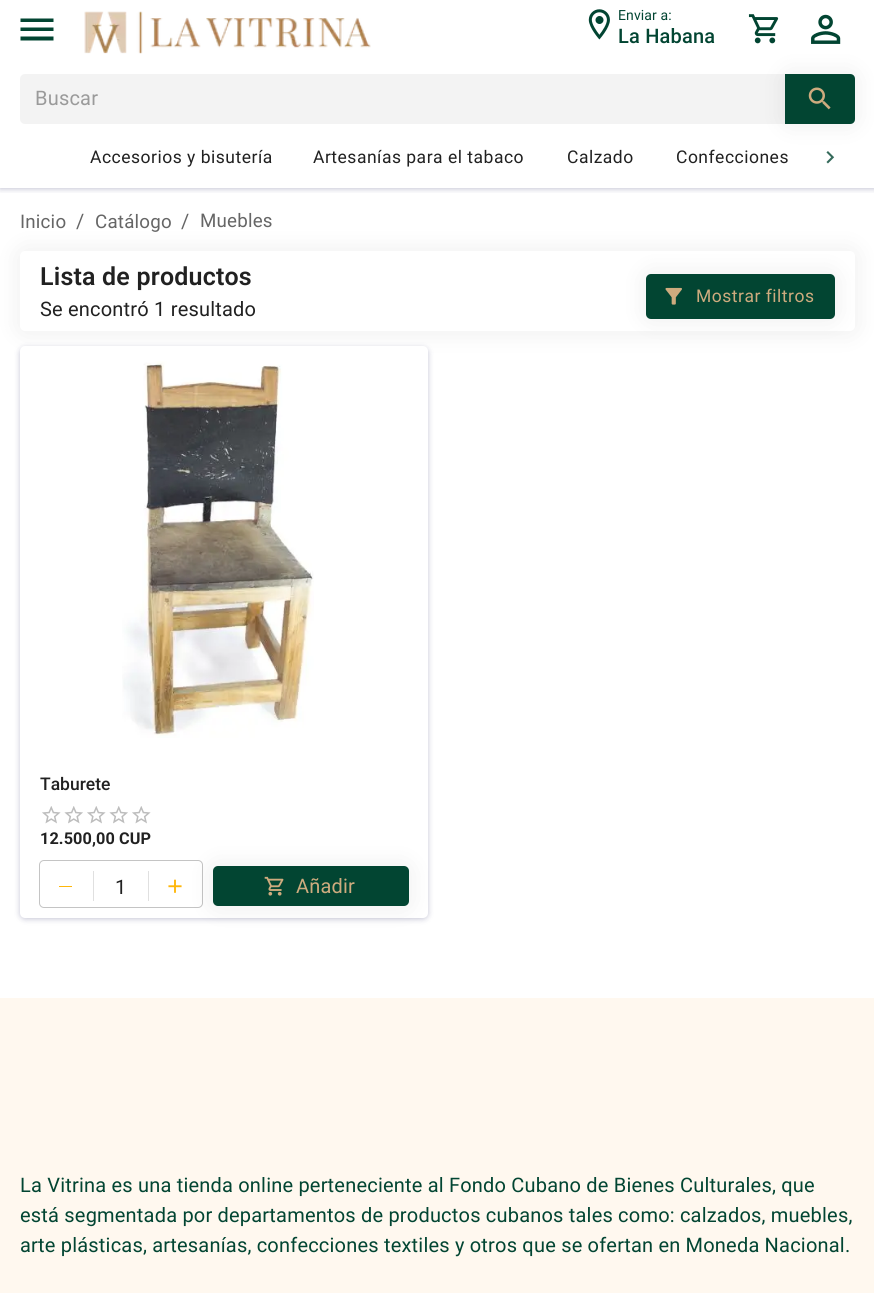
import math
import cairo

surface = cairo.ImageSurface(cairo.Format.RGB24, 874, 1293)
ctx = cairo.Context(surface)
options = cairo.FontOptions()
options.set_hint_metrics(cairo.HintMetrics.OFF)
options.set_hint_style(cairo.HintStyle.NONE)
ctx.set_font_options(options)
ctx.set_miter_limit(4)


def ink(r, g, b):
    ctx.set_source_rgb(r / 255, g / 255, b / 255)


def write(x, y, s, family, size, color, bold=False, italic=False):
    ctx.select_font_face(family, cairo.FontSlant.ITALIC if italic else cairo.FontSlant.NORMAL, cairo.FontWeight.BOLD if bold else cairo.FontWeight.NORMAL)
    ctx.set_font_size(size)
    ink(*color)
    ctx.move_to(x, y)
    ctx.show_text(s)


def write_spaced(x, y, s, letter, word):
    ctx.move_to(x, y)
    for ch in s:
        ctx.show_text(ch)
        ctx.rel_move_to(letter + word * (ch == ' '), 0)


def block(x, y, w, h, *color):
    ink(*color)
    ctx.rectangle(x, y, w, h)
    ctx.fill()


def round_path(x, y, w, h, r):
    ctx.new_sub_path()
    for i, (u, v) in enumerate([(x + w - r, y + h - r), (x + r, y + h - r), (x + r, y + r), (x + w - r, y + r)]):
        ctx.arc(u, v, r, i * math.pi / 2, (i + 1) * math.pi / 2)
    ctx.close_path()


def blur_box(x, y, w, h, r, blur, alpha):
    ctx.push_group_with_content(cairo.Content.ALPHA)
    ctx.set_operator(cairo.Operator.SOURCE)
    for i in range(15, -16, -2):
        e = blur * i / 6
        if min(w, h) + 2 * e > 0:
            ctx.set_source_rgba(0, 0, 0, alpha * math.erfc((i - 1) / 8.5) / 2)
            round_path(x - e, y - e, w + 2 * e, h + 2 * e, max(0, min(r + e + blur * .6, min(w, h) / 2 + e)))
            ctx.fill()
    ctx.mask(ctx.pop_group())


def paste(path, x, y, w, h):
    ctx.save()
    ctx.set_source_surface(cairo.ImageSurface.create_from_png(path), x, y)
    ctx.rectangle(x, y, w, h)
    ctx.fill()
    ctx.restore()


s1 = dict(family="Roboto Medium", size=17.5, color=(33, 33, 33))

ink(255, 255, 255)
ctx.paint()
ctx.save()
ctx.rectangle(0, 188, 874, 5)
ctx.clip()
ink(3, 0, 71)
blur_box(0, -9, 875, 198, 0, 3, 0.23)
ctx.restore()
ink(2, 69, 50)
ctx.new_path()
ctx.move_to(20.5, 40.5)
ctx.line_to(53.5, 40.5)
ctx.line_to(53.5, 36.5)
ctx.line_to(20.5, 36.5)
ctx.close_path()
ctx.move_to(20.5, 31)
ctx.line_to(53.5, 31)
ctx.line_to(53.5, 27.5)
ctx.line_to(20.5, 27.5)
ctx.close_path()
ctx.move_to(20.5, 18.5)
ctx.line_to(20.5, 22)
ctx.line_to(53.5, 22)
ctx.line_to(53.5, 18.5)
ctx.close_path()
ctx.fill()
paste("pic1.png", 84, 11, 287, 43)
paste("pic2.png", 588, 9, 22, 31)
ctx.select_font_face("Roboto")
ctx.set_font_size(14)
write_spaced(618, 20, "Enviar a:", 0.1, 0)
ctx.select_font_face("Roboto Medium")
ctx.set_font_size(20)
write_spaced(618, 43, "La Habana", 0.2, 0)
paste("pic3.png", 748, 14, 31, 30)
paste("pic4.png", 811, 14, 30, 30)
block(0, 187, 874, 1, 255, 255, 255)
ink(243, 243, 243)
round_path(20, 74, 835, 50, 5)
ctx.fill()
ctx.select_font_face("Roboto")
ink(154, 154, 154)
write_spaced(35, 105, "Buscar", 0.2, 0)
ink(0, 0, 0)
blur_box(784, 73, 72, 52, 6, 13, 0.07)
ink(2, 69, 50)
ctx.new_path()
ctx.move_to(785, 74)
ctx.line_to(850, 74)
ctx.curve_to(853, 74, 855, 76, 855, 79)
ctx.line_to(855, 119)
ctx.curve_to(855, 122, 853, 124, 850, 124)
ctx.line_to(785, 124)
ctx.close_path()
ctx.fill()
paste("pic5.png", 808, 87, 23, 23)
ctx.set_font_size(17.5)
ink(33, 33, 33)
write_spaced(90, 163, "Accesorios y bisutería", 0.5, 0)
write_spaced(313, 163, "Artesanías para el tabaco", 0.5, 0)
write_spaced(567, 163, "Calzado", 0.5, 0)
write_spaced(676, 163, "Confecciones", 0.5, 0)
paste("pic6.png", 826, 151, 9, 13)
ink(0, 0, 0)
blur_box(19, 250, 837, 83, 6, 13, 0.07)
ctx.set_font_size(18.75)
ink(102, 102, 102)
write_spaced(20, 228, "Inicio", 0.2, 0)
ctx.set_font_size(20)
write_spaced(76, 228, "/", 0.2, 0)
ctx.set_font_size(18.75)
write_spaced(95, 228, "Catálogo", 0.2, 0)
ctx.set_font_size(20)
write_spaced(181, 228, "/", 0.2, 0)
ctx.set_font_size(18.75)
write_spaced(200, 227, "Muebles", 0.2, 0)
ink(255, 255, 255)
round_path(20, 251, 835, 80, 5)
ctx.fill()
ctx.select_font_face("Roboto SemiBold")
ctx.set_font_size(25)
ink(33, 33, 33)
write_spaced(40, 285, "Lista de productos", 0.2, 0)
ctx.select_font_face("Roboto")
ctx.set_font_size(20)
write_spaced(40, 316, "Se encontró 1 resultado", 0.2, 0)
ink(0, 0, 0)
blur_box(645, 273, 191, 47, 6, 13, 0.07)
ink(2, 69, 50)
round_path(646, 274, 189, 45, 5)
ctx.fill()
paste("pic7.png", 665, 287, 17, 18)
ctx.set_font_size(17.5)
ink(206, 171, 126)
write_spaced(696, 302, "Mostrar filtros", 0.5, 0)
ink(3, 0, 71)
blur_box(20, 348, 408, 571, 5, 3, 0.23)
ink(255, 255, 255)
round_path(20, 346, 408, 572, 5)
ctx.fill()
paste("pic8.png", 122, 361, 192, 377)
write(40, 790, "Taburete", **s1)
paste("pic9.png", 42, 806, 19, 18)
paste("pic10.png", 64, 806, 19, 18)
paste("pic9.png", 87, 806, 19, 18)
paste("pic10.png", 109, 806, 19, 18)
paste("pic9.png", 132, 806, 19, 18)
ctx.select_font_face("Roboto", cairo.FontSlant.NORMAL, cairo.FontWeight.BOLD)
ctx.set_font_size(16.25)
write_spaced(40, 844, "12.500,00 CUP", 0.1, 0)
block(93, 871, 1, 30, 224, 224, 224)
block(59, 886, 13, 1, 255, 183, 10)
block(148, 871, 1, 30, 224, 224, 224)
paste("pic11.png", 168, 879, 14, 14)
round_path(39.5, 860.5, 163, 47, 4.5)
ink(196, 196, 196)
ctx.set_line_width(1)
ctx.stroke()
ctx.select_font_face("Roboto")
ctx.set_font_size(20)
ink(33, 33, 33)
write_spaced(115, 894, "1", 0.2, 0)
ink(0, 0, 0)
blur_box(211, 865, 199, 43, 6, 13, 0.07)
ink(2, 69, 50)
round_path(213, 866, 196, 40, 5)
ctx.fill()
paste("pic12.png", 264, 876, 20, 20)
ink(206, 171, 126)
write_spaced(296, 893, "Añadir", 0.2, 0)
block(0, 998, 874, 295, 255, 248, 239)
ink(2, 69, 50)
write_spaced(20, 1192, "La Vitrina es una tienda online perteneciente al Fondo Cubano de Bienes Culturales, que", 0.2, 0)
write_spaced(20, 1222, "está segmentada por departamentos de productos cubanos tales como: calzados, muebles,", 0.2, 0)
write_spaced(20, 1252, "arte plásticas, artesanías, confecciones textiles y otros que se ofertan en Moneda Nacional.", 0.2, 0)
surface.write_to_png("screenshot.png")
